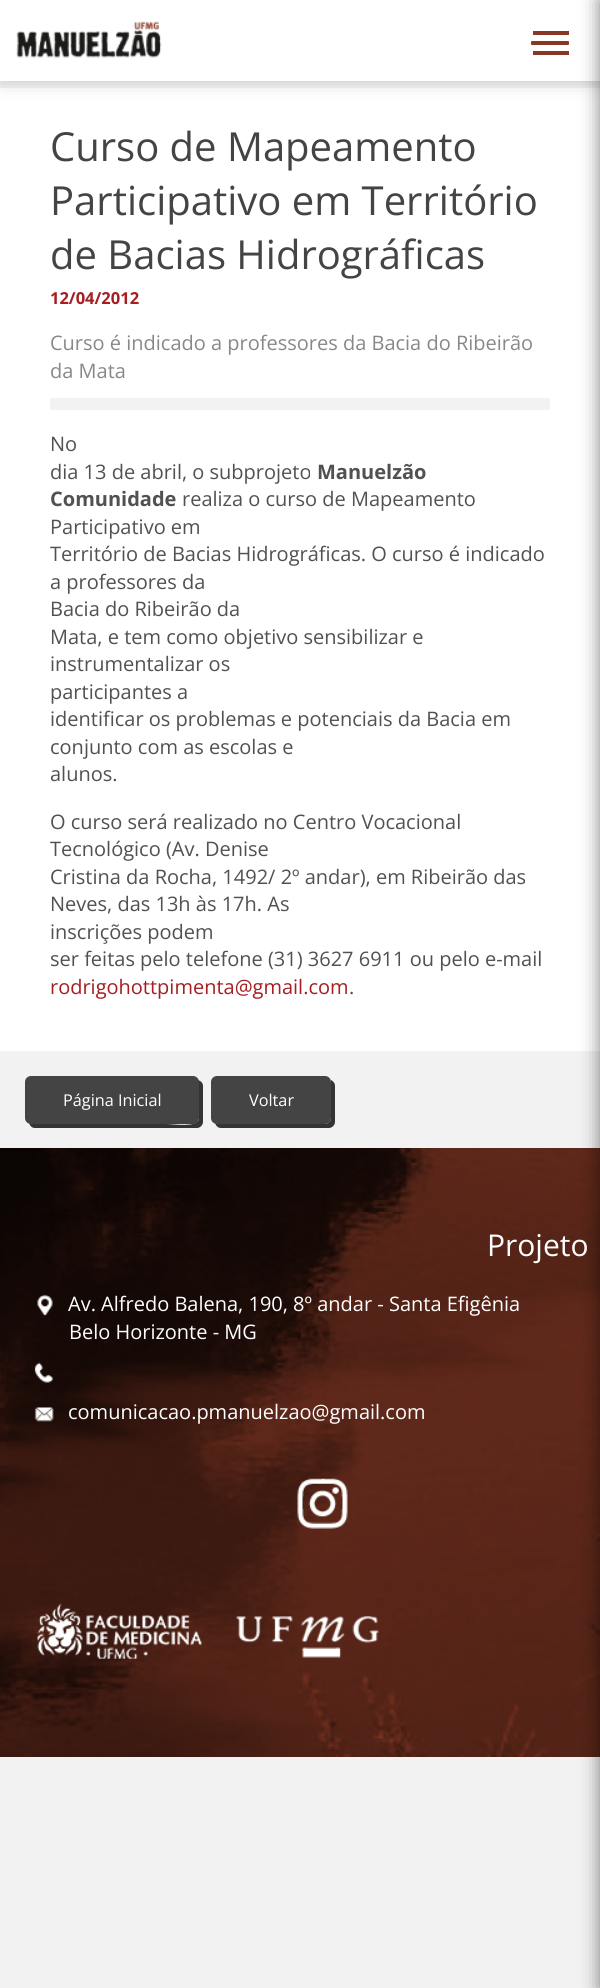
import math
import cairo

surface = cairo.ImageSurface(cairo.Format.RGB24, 600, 1988)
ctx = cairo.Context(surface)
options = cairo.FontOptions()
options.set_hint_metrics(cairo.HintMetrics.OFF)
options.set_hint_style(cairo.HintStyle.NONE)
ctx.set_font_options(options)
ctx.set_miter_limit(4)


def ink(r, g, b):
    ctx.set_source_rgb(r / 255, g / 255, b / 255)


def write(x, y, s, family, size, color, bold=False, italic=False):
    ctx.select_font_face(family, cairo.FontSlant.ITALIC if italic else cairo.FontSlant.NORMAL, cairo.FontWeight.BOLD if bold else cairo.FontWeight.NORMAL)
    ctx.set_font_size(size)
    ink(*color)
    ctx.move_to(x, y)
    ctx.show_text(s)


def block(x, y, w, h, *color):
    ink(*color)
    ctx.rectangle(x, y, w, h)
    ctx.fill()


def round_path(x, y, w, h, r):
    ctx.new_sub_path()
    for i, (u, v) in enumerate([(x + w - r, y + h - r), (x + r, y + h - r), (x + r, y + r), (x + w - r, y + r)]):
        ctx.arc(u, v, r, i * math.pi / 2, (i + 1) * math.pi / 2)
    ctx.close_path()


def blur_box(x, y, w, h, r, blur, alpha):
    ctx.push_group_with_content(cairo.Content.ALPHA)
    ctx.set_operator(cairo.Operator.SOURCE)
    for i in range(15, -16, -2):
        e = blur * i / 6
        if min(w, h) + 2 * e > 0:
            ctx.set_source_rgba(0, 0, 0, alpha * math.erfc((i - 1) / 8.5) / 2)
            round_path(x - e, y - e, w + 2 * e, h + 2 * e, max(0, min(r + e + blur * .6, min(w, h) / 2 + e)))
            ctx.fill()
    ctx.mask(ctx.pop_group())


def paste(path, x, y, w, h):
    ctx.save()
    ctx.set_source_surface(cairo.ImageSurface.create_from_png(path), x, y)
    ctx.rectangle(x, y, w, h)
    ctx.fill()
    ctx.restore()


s1 = dict(family="Open Sans", size=40, color=(68, 68, 68))
s2 = dict(family="Open Sans", size=16.5, color=(165, 30, 34), bold=True)
s3 = dict(family="Open Sans", size=20, color=(136, 136, 136))
s4 = dict(family="Open Sans", size=20, color=(81, 81, 81))
s5 = dict(family="Open Sans", size=20, color=(81, 81, 81), bold=True)
s6 = dict(family="Open Sans", size=20, color=(165, 30, 34))
s7 = dict(family="Open Sans", size=16.25, color=(255, 255, 255))
s8 = dict(family="Open Sans", size=30, color=(255, 255, 255))
s9 = dict(family="Open Sans", size=20, color=(255, 255, 255))

ink(242, 242, 242)
ctx.paint()
block(0, 88, 600, 963, 255, 255, 255)
ink(0, 0, 0)
blur_box(0, 0, 600, 81, 0, 9.5, 0.2)
block(0, 0, 600, 81, 255, 255, 255)
paste("pic1.png", 16, 21, 146, 37)
block(533, 31, 36, 4, 135, 57, 37)
block(533, 51, 36, 4, 135, 57, 37)
round_path(531, 41, 38, 4, 1)
ctx.fill()
paste("pic2.png", 0, 1148, 600, 609)
ink(0, 0, 0)
blur_box(600, 0, 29, 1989, 0, 9.5, 0.5)
write(50, 161, "Curso de Mapeamento", **s1)
write(50, 215, "Participativo em Território", **s1)
write(50, 269, "de Bacias Hidrográficas", **s1)
write(50, 304, "12/04/2012", **s2)
write(50, 350, "Curso é indicado a professores da Bacia do Ribeirão", **s3)
write(50, 378, "da Mata", **s3)
block(50, 398, 500, 12, 242, 242, 242)
write(50, 451, "No", **s4)
write(50, 479, "dia 13 de abril, o subprojeto", **s4)
write(317, 479, "Manuelzão", **s5)
write(50, 506, "Comunidade", **s5)
write(182, 506, "realiza o curso de Mapeamento", **s4)
write(50, 534, "Participativo em", **s4)
write(50, 561, "Território de Bacias Hidrográficas. O curso é indicado", **s4)
write(50, 589, "a professores da", **s4)
write(50, 616, "Bacia do Ribeirão da", **s4)
write(50, 644, "Mata, e tem como objetivo sensibilizar e", **s4)
write(50, 671, "instrumentalizar os", **s4)
write(50, 699, "participantes a", **s4)
write(50, 726, "identificar os problemas e potenciais da Bacia em", **s4)
write(50, 754, "conjunto com as escolas e", **s4)
write(50, 781, "alunos.", **s4)
write(50, 829, "O curso será realizado no Centro Vocacional", **s4)
write(50, 856, "Tecnológico (Av. Denise", **s4)
write(50, 884, "Cristina da Rocha, 1492/ 2º andar), em Ribeirão das", **s4)
write(50, 911, "Neves, das 13h às 17h. As", **s4)
write(50, 939, "inscrições podem", **s4)
write(50, 966, "ser feitas pelo telefone (31) 3627 6911 ou pelo e-mail", **s4)
write(50, 994, "rodrigohottpimenta@gmail.com", **s6)
write(349, 994, ".", **s4)
ink(52, 52, 52)
ctx.new_path()
ctx.move_to(29, 1123)
ctx.curve_to(30, 1126, 32, 1128, 35, 1128)
ctx.line_to(197, 1128)
ctx.curve_to(200, 1128, 203, 1125, 203, 1122)
ctx.line_to(203, 1086)
ctx.curve_to(203, 1083, 201, 1081, 198, 1080)
ctx.line_to(199, 1088)
ctx.line_to(199, 1119)
ctx.curve_to(197, 1128, 174, 1124, 166, 1124)
ctx.close_path()
ctx.fill()
ink(68, 68, 68)
round_path(25, 1076, 174, 48, 6)
ctx.fill()
write(63, 1106, "Página Inicial", **s7)
ink(52, 52, 52)
ctx.new_path()
ctx.move_to(215, 1123)
ctx.curve_to(216, 1126, 218, 1128, 221, 1128)
ctx.line_to(329, 1128)
ctx.curve_to(332, 1128, 335, 1125, 335, 1122)
ctx.line_to(335, 1086)
ctx.curve_to(335, 1083, 333, 1081, 331, 1080)
ctx.line_to(331, 1082)
ctx.line_to(331, 1118)
ctx.curve_to(331, 1121, 328, 1124, 325, 1124)
ctx.line_to(218, 1124)
ctx.close_path()
ctx.fill()
ink(68, 68, 68)
round_path(211, 1076, 120, 48, 6)
ctx.fill()
write(249, 1106, "Voltar", **s7)
write(487, 1256, "Projeto", **s8)
paste("pic3.png", 37, 1294, 16, 22)
write(68, 1311, "Av. Alfredo Balena, 190, 8º andar - Santa Efigênia", **s9)
write(69, 1339, "Belo Horizonte - MG", **s9)
paste("pic4.png", 34, 1362, 19, 21)
paste("pic5.png", 34, 1407, 20, 15)
write(68, 1419, "comunicacao.pmanuelzao@gmail.com", **s9)
paste("pic6.png", 297, 1478, 51, 51)
paste("pic7.png", 37, 1603, 165, 56)
paste("pic8.png", 236, 1616, 143, 42)
surface.write_to_png("screenshot.png")
